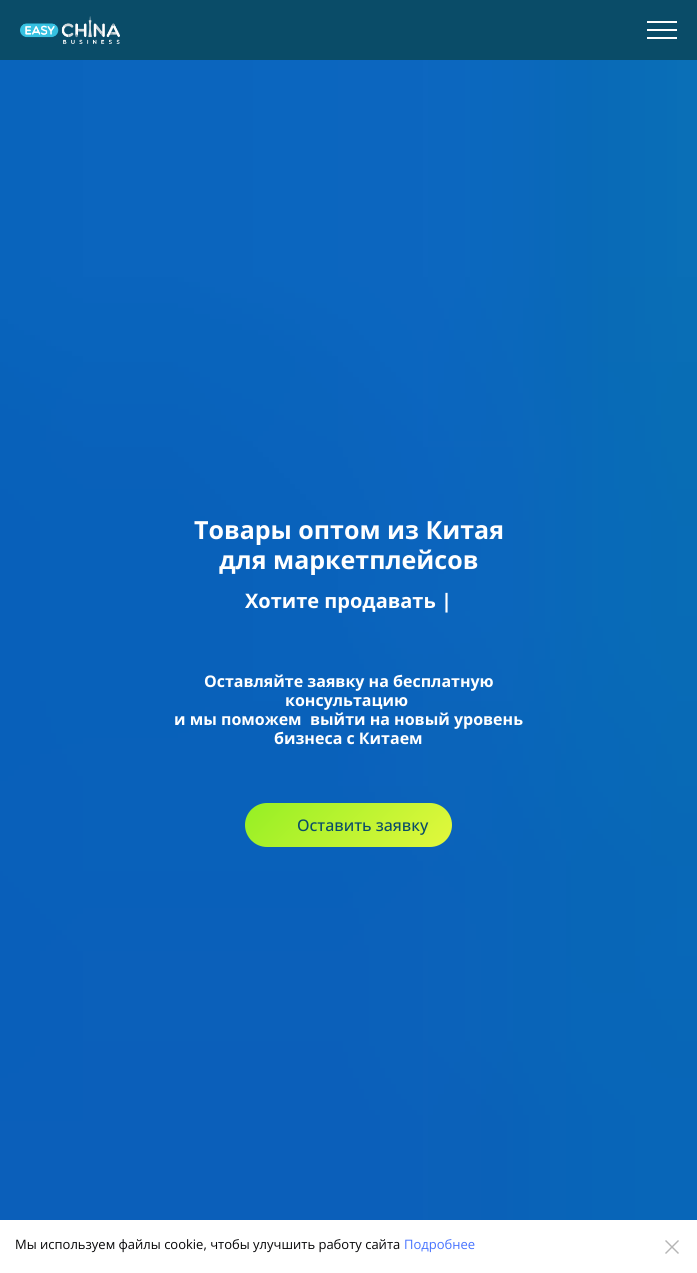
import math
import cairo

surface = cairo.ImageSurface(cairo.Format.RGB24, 697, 1273)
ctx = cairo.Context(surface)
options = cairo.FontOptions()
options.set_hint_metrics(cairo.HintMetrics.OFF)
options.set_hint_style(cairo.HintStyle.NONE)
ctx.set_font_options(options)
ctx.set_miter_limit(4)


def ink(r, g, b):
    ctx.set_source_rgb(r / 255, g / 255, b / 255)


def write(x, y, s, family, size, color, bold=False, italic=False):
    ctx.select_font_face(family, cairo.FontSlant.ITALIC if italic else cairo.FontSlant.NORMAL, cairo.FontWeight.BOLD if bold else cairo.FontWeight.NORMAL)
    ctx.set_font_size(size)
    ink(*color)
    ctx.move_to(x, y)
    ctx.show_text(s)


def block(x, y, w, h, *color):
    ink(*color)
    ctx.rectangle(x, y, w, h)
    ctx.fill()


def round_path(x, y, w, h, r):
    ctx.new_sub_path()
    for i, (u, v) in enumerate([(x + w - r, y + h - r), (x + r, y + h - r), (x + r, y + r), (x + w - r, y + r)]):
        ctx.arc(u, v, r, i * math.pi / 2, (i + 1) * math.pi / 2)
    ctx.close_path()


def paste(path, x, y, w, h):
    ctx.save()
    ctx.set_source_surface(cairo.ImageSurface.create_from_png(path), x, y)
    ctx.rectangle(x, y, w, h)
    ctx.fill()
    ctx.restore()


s1 = dict(family="Open Sans", size=25, color=(255, 255, 255), bold=True)
s2 = dict(family="Open Sans", size=20, color=(255, 255, 255), bold=True)
s3 = dict(family="Open Sans", size=16, color=(255, 255, 255), bold=True)
s4 = dict(family="Open Sans Medium", size=16, color=(10, 76, 104))
s5 = dict(family="Open Sans", size=13, color=(6, 6, 7))
s6 = dict(family="Open Sans", size=13, color=(71, 115, 255))

ink(255, 255, 255)
ctx.paint()
block(0, 0, 697, 60, 10, 76, 104)
paste("pic1.png", 20, 16, 100, 28)
block(647, 21, 30, 2, 255, 255, 255)
block(647, 29, 30, 2, 255, 255, 255)
block(647, 37, 30, 2, 255, 255, 255)
paste("pic2.png", 0, 60, 697, 1160)
write(194, 539, "Товары оптом из Китая", **s1)
write(219, 569, "для маркетплейсов", **s1)
write(245, 608, "Хотите продавать |", **s2)
write(204, 687, "Оставляйте заявку на бесплатную", **s3)
write(285, 706, "консультацию", **s3)
write(174, 725, "и мы поможем  выйти на новый уровень", **s3)
write(274, 744, "бизнеса с Китаем", **s3)
gradient = cairo.LinearGradient(286, 762, 411, 888)
gradient.add_color_stop_rgba(0, 0.584, 0.937, 0.141, 1)
gradient.add_color_stop_rgba(1, 0.89, 0.973, 0.239, 1)
ctx.set_source(gradient)
round_path(245, 803, 207, 44, 22)
ctx.fill()
write(297, 831, "Оставить заявку", **s4)
write(15, 1249, "Мы используем файлы cookie, чтобы улучшить работу сайта", **s5)
write(404, 1249, "Подробнее", **s6)
paste("pic3.png", 665, 1240, 14, 14)
surface.write_to_png("screenshot.png")
